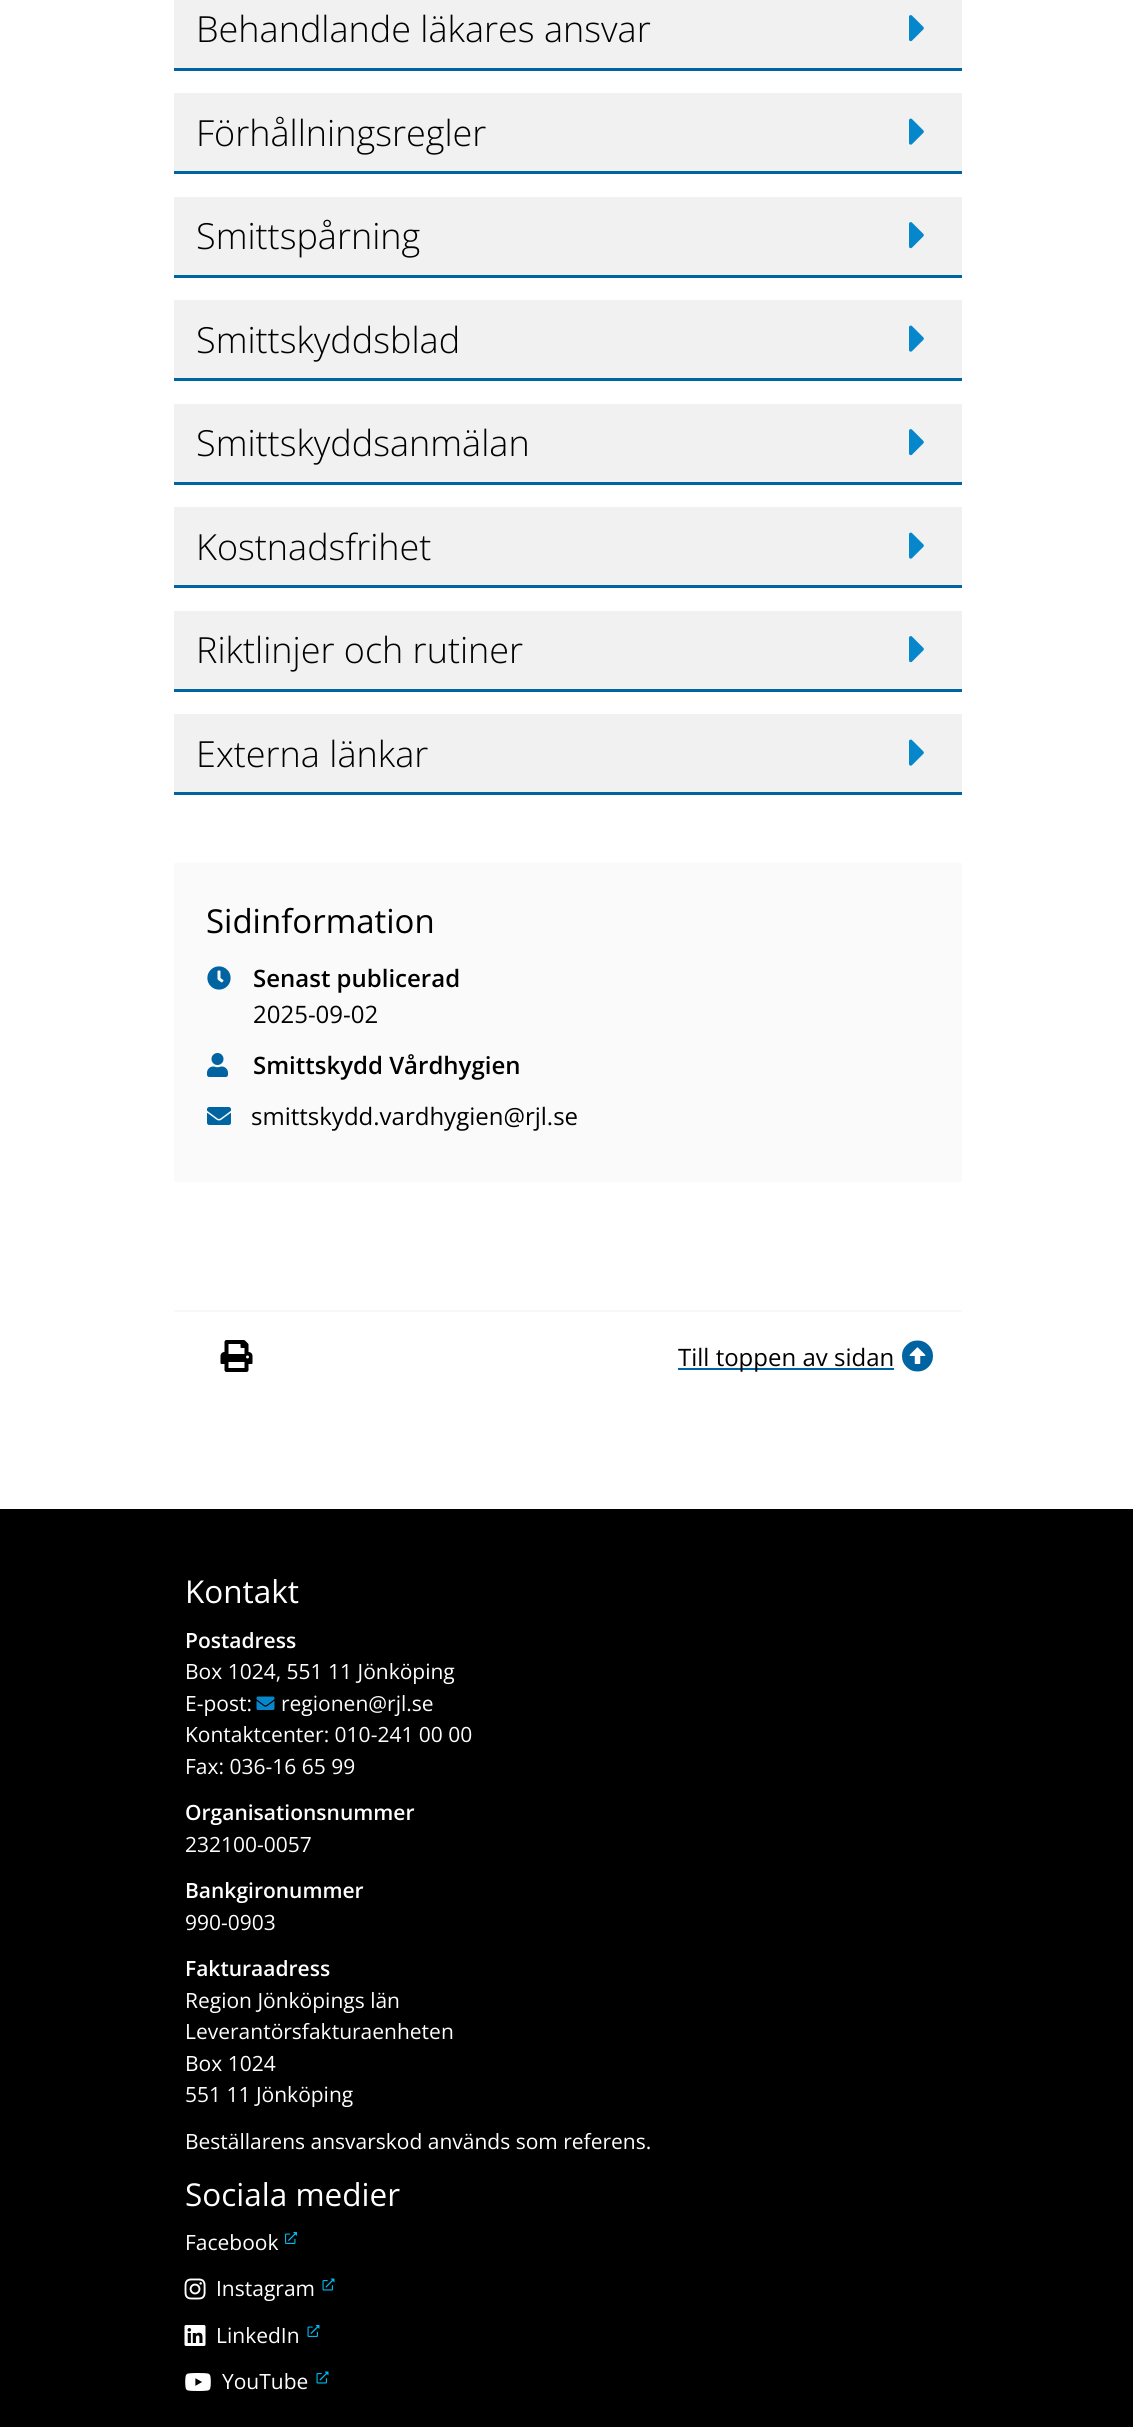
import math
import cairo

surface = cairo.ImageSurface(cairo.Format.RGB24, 1133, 2427)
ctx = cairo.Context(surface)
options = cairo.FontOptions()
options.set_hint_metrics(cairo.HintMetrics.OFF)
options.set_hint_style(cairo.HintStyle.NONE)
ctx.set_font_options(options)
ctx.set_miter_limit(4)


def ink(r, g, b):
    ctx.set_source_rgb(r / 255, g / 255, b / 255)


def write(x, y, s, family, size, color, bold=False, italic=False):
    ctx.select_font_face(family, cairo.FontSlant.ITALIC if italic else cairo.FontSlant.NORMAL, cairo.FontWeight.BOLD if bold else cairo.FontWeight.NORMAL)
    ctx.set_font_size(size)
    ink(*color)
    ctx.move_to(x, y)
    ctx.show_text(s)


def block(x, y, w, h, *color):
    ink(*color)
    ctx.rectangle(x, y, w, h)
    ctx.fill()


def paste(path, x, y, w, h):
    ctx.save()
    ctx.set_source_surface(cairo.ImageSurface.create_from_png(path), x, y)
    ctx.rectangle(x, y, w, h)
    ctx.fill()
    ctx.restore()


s1 = dict(family="Open Sans Light", size=36, color=(0, 0, 0))
s2 = dict(family="Open Sans", size=33, color=(0, 0, 0))
s3 = dict(family="Open Sans SemiBold", size=24, color=(0, 0, 0))
s4 = dict(family="Open Sans", size=24, color=(0, 0, 0))
s5 = dict(family="Open Sans", size=31.5, color=(255, 255, 255))
s6 = dict(family="Open Sans SemiBold", size=21, color=(255, 255, 255))
s7 = dict(family="Open Sans", size=21, color=(255, 255, 255))

ink(255, 255, 255)
ctx.paint()
block(174, 0, 788, 68, 241, 241, 241)
block(174, 68, 788, 3, 0, 99, 162)
write(196, 42, "Behandlande läkares ansvar", **s1)
paste("pic1.png", 909, 15, 15, 27)
block(174, 93, 788, 78, 241, 241, 241)
block(174, 171, 788, 3, 0, 99, 162)
write(196, 146, "Förhållningsregler", **s1)
paste("pic2.png", 909, 118, 15, 27)
block(174, 197, 788, 78, 241, 241, 241)
block(174, 275, 788, 3, 0, 99, 162)
write(196, 249, "Smittspårning", **s1)
paste("pic1.png", 909, 222, 15, 27)
block(174, 300, 788, 78, 241, 241, 241)
block(174, 378, 788, 3, 0, 99, 162)
write(196, 353, "Smittskyddsblad", **s1)
paste("pic2.png", 909, 325, 15, 27)
block(174, 404, 788, 78, 241, 241, 241)
block(174, 482, 788, 3, 0, 99, 162)
write(196, 456, "Smittskyddsanmälan", **s1)
paste("pic1.png", 909, 429, 15, 27)
block(174, 507, 788, 78, 241, 241, 241)
block(174, 585, 788, 3, 0, 99, 162)
write(196, 560, "Kostnadsfrihet", **s1)
paste("pic2.png", 909, 532, 15, 27)
block(174, 611, 788, 78, 241, 241, 241)
block(174, 689, 788, 3, 0, 99, 162)
write(196, 663, "Riktlinjer och rutiner", **s1)
paste("pic1.png", 909, 636, 15, 27)
block(174, 714, 788, 78, 241, 241, 241)
block(174, 792, 788, 3, 0, 99, 162)
write(196, 767, "Externa länkar", **s1)
paste("pic2.png", 909, 739, 15, 27)
block(174, 863, 788, 319, 250, 250, 250)
write(206, 933, "Sidinformation", **s2)
paste("pic3.png", 207, 966, 24, 24)
write(253, 987, "Senast publicerad", **s3)
write(253, 1023, "2025-09-02", **s4)
paste("pic4.png", 207, 1053, 21, 24)
write(253, 1074, "Smittskydd Vårdhygien", **s3)
paste("pic5.png", 207, 1107, 24, 18)
write(251, 1125, "smittskydd.vardhygien@rjl.se", **s4)
block(174, 1310, 788, 2, 248, 248, 248)
paste("pic6.png", 220, 1340, 33, 32)
block(678, 1368, 216, 2, 0, 99, 162)
write(678, 1366, "Till toppen av sidan", **s4)
paste("pic7.png", 902, 1340, 31, 32)
block(0, 1509, 1133, 918, 0, 0, 0)
write(185, 1603, "Kontakt", **s5)
write(185, 1648, "Postadress", **s6)
write(185, 1679, "Box 1024, 551 11 Jönköping", **s7)
write(185, 1711, "E-post:", **s7)
paste("pic8.png", 256, 1696, 19, 14)
write(281, 1711, "regionen@rjl.se", **s7)
write(185, 1742, "Kontaktcenter: 010-241 00 00", **s7)
write(185, 1774, "Fax: 036-16 65 99", **s7)
write(185, 1820, "Organisationsnummer", **s6)
write(185, 1852, "232100-0057", **s7)
write(185, 1898, "Bankgironummer", **s6)
write(185, 1930, "990-0903", **s7)
write(185, 1976, "Fakturaadress", **s6)
write(185, 2008, "Region Jönköpings län", **s7)
write(185, 2039, "Leverantörsfakturaenheten", **s7)
write(185, 2071, "Box 1024", **s7)
write(185, 2102, "551 11 Jönköping", **s7)
write(185, 2149, "Beställarens ansvarskod används som referens.", **s7)
write(185, 2206, "Sociala medier", **s5)
write(185, 2250, "Facebook", **s7)
paste("pic9.png", 285, 2232, 12, 12)
paste("pic10.png", 184, 2278, 22, 22)
write(216, 2296, "Instagram", **s7)
paste("pic11.png", 322, 2278, 13, 13)
paste("pic12.png", 184, 2325, 22, 21)
write(216, 2343, "LinkedIn", **s7)
paste("pic13.png", 307, 2325, 13, 12)
paste("pic14.png", 185, 2373, 26, 18)
write(222, 2389, "YouTube", **s7)
paste("pic11.png", 316, 2371, 13, 13)
surface.write_to_png("screenshot.png")
